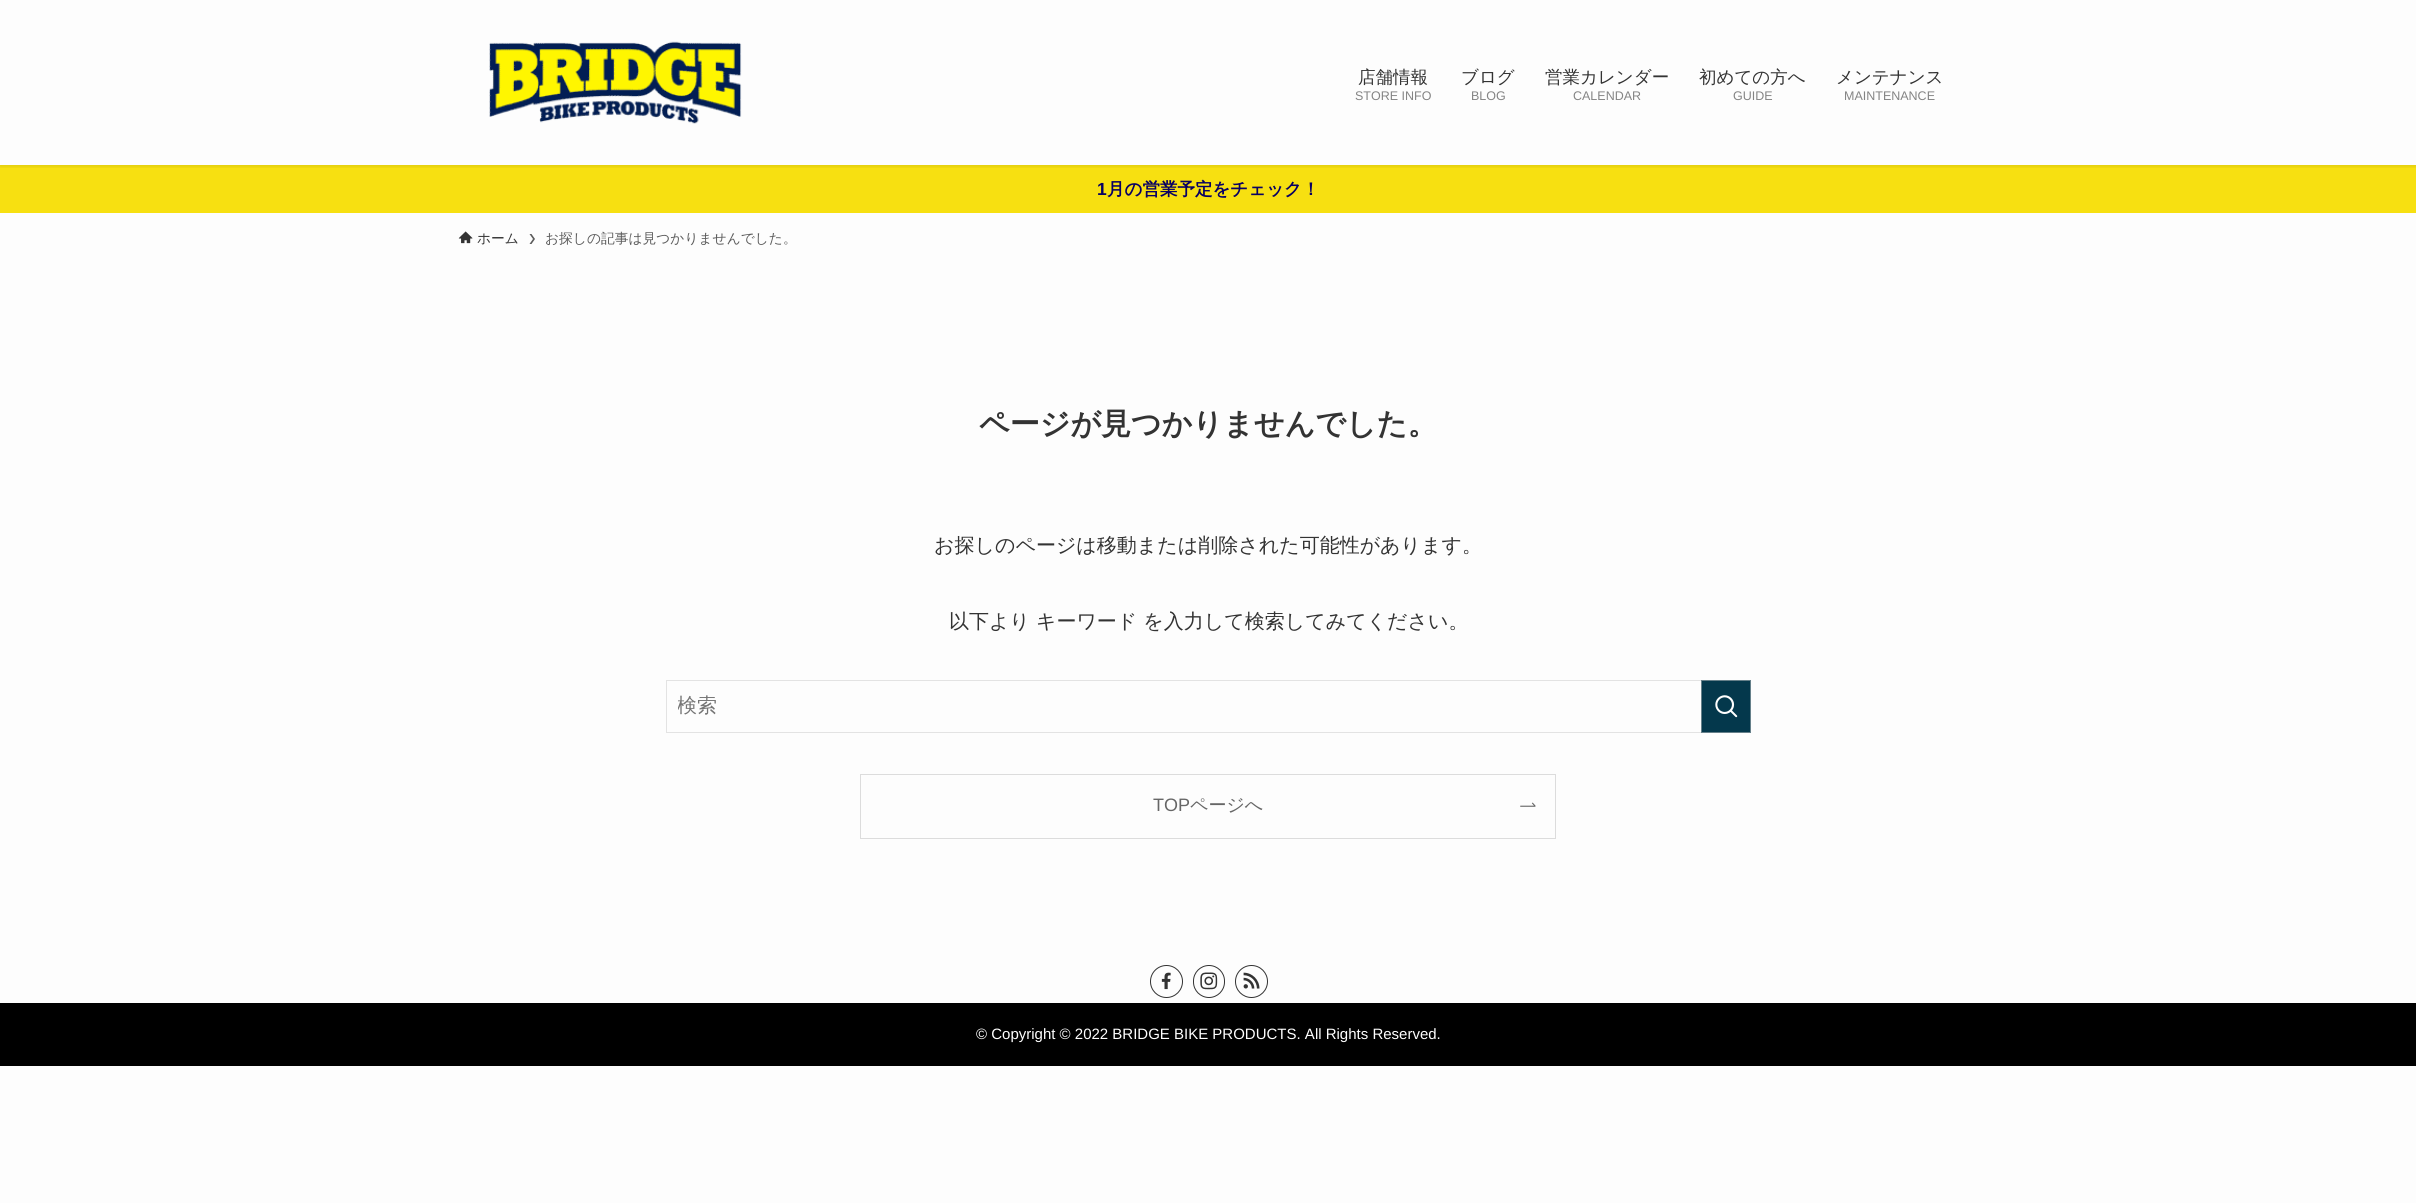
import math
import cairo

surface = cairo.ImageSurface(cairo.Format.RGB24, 2416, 1203)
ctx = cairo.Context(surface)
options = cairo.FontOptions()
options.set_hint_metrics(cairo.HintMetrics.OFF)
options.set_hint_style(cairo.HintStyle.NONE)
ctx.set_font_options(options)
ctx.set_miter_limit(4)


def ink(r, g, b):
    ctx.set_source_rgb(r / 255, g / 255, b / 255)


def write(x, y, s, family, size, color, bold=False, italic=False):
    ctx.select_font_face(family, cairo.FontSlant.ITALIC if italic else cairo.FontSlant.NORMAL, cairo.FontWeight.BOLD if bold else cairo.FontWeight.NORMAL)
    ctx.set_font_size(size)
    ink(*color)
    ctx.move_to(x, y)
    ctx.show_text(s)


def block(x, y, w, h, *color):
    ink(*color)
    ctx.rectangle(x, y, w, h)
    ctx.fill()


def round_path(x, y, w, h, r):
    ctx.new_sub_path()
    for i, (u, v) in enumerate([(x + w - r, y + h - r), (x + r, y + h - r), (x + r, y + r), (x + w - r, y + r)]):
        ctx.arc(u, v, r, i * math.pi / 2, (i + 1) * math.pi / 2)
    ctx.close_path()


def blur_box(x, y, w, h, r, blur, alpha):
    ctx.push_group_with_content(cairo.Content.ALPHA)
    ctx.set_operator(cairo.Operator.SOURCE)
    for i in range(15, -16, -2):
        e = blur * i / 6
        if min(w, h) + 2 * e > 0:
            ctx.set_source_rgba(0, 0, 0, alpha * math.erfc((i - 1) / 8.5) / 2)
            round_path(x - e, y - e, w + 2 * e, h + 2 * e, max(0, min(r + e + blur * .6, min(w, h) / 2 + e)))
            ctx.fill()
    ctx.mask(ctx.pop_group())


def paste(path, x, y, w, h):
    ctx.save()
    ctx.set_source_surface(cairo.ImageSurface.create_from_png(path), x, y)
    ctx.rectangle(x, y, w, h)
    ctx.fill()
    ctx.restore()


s1 = dict(family="WenQuanYi Zen Hei Medium", size=17.5, color=(51, 51, 51))
s2 = dict(family="Liberation Sans", size=12.5, color=(132, 132, 132))
s3 = dict(family="Liberation Sans", size=17.5, color=(8, 0, 99), bold=True)
s4 = dict(family="WenQuanYi Zen Hei", size=17.5, color=(8, 0, 99), bold=True)
s5 = dict(family="WenQuanYi Zen Hei Medium", size=13.75, color=(51, 51, 51))
s6 = dict(family="WenQuanYi Zen Hei Medium", size=13.75, color=(91, 91, 91))
s7 = dict(family="WenQuanYi Zen Hei", size=30, color=(51, 51, 51), bold=True)
s8 = dict(family="WenQuanYi Zen Hei Medium", size=20, color=(51, 51, 51))
s9 = dict(family="WenQuanYi Zen Hei Medium", size=20, color=(117, 117, 117))
s10 = dict(family="Liberation Sans", size=18, color=(102, 102, 102))
s11 = dict(family="WenQuanYi Zen Hei Medium", size=18, color=(102, 102, 102))
s12 = dict(family="Liberation Sans", size=15, color=(255, 255, 255))

ink(253, 253, 253)
ctx.paint()
block(0, 165, 2416, 48, 247, 224, 17)
ctx.save()
ctx.rectangle(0, 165, 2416, 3)
ctx.clip()
ink(0, 0, 0)
blur_box(0, 1, 2416, 165, 0, 2.5, 0.12)
ctx.restore()
paste("pic1.png", 489, 41, 253, 83)
write(1358, 83, "店舗情報", **s1)
write(1355, 100, "STORE INFO", **s2)
write(1461, 83, "ブログ", **s1)
write(1471, 100, "BLOG", **s2)
write(1545, 83, "営業カレンダー", **s1)
write(1573, 100, "CALENDAR", **s2)
write(1699, 83, "初めての方へ", **s1)
write(1733, 100, "GUIDE", **s2)
write(1836, 83, "メンテナンス", **s1)
write(1844, 100, "MAINTENANCE", **s2)
write(1097, 195, "1", **s3)
write(1107, 195, "月の営業予定をチェック！", **s4)
paste("pic2.png", 458, 231, 15, 13)
write(477, 243, "ホーム", **s5)
ink(91, 91, 91)
ctx.new_path()
ctx.move_to(531.5, 234)
ctx.line_to(529.5, 234)
ctx.line_to(533, 239)
ctx.line_to(529.5, 244)
ctx.line_to(531.5, 244)
ctx.line_to(535, 239)
ctx.close_path()
ctx.fill()
write(545, 243, "お探しの記事は見つかりませんでした。", **s6)
write(979, 434, "ページが見つかりませんでした。", **s7)
write(934, 552, "お探しのページは移動または削除された可能性があります。", **s8)
write(949, 628, "以下より キーワード を入力して検索してみてください。", **s8)
ctx.rectangle(666.5, 680.5, 1084, 52)
ink(227, 227, 227)
ctx.set_line_width(1)
ctx.stroke()
ctx.save()
ctx.rectangle(678, 694, 1017, 26)
ctx.clip()
write(677, 712, "検索", **s9)
ctx.restore()
ink(4, 56, 76)
ctx.rectangle(1701.5, 680.5, 49, 52)
ctx.fill_preserve()
ink(102, 128, 138)
ctx.stroke()
paste("pic3.png", 1715, 695, 23, 23)
ctx.rectangle(860.5, 774.5, 695, 64)
ink(220, 220, 220)
ctx.stroke()
write(1153, 811, "TOP", **s10)
write(1190, 811, "ページへ", **s11)
paste("pic4.png", 1520, 802, 16, 5)
ctx.arc(1166.5, 981.5, 16, 0, 2 * math.pi)
ink(51, 51, 51)
ctx.stroke()
paste("pic5.png", 1161, 972, 10, 18)
round_path(1193.5, 965.5, 31, 32, 15.5)
ctx.stroke()
paste("pic6.png", 1200, 972, 18, 18)
ctx.arc(1251.5, 981.5, 16, 0, 2 * math.pi)
ctx.stroke()
paste("pic7.png", 1243, 972, 17, 17)
block(0, 1003, 2416, 63, 0, 0, 0)
write(976, 1039, "© Copyright © 2022 BRIDGE BIKE PRODUCTS. All Rights Reserved.", **s12)
surface.write_to_png("screenshot.png")
